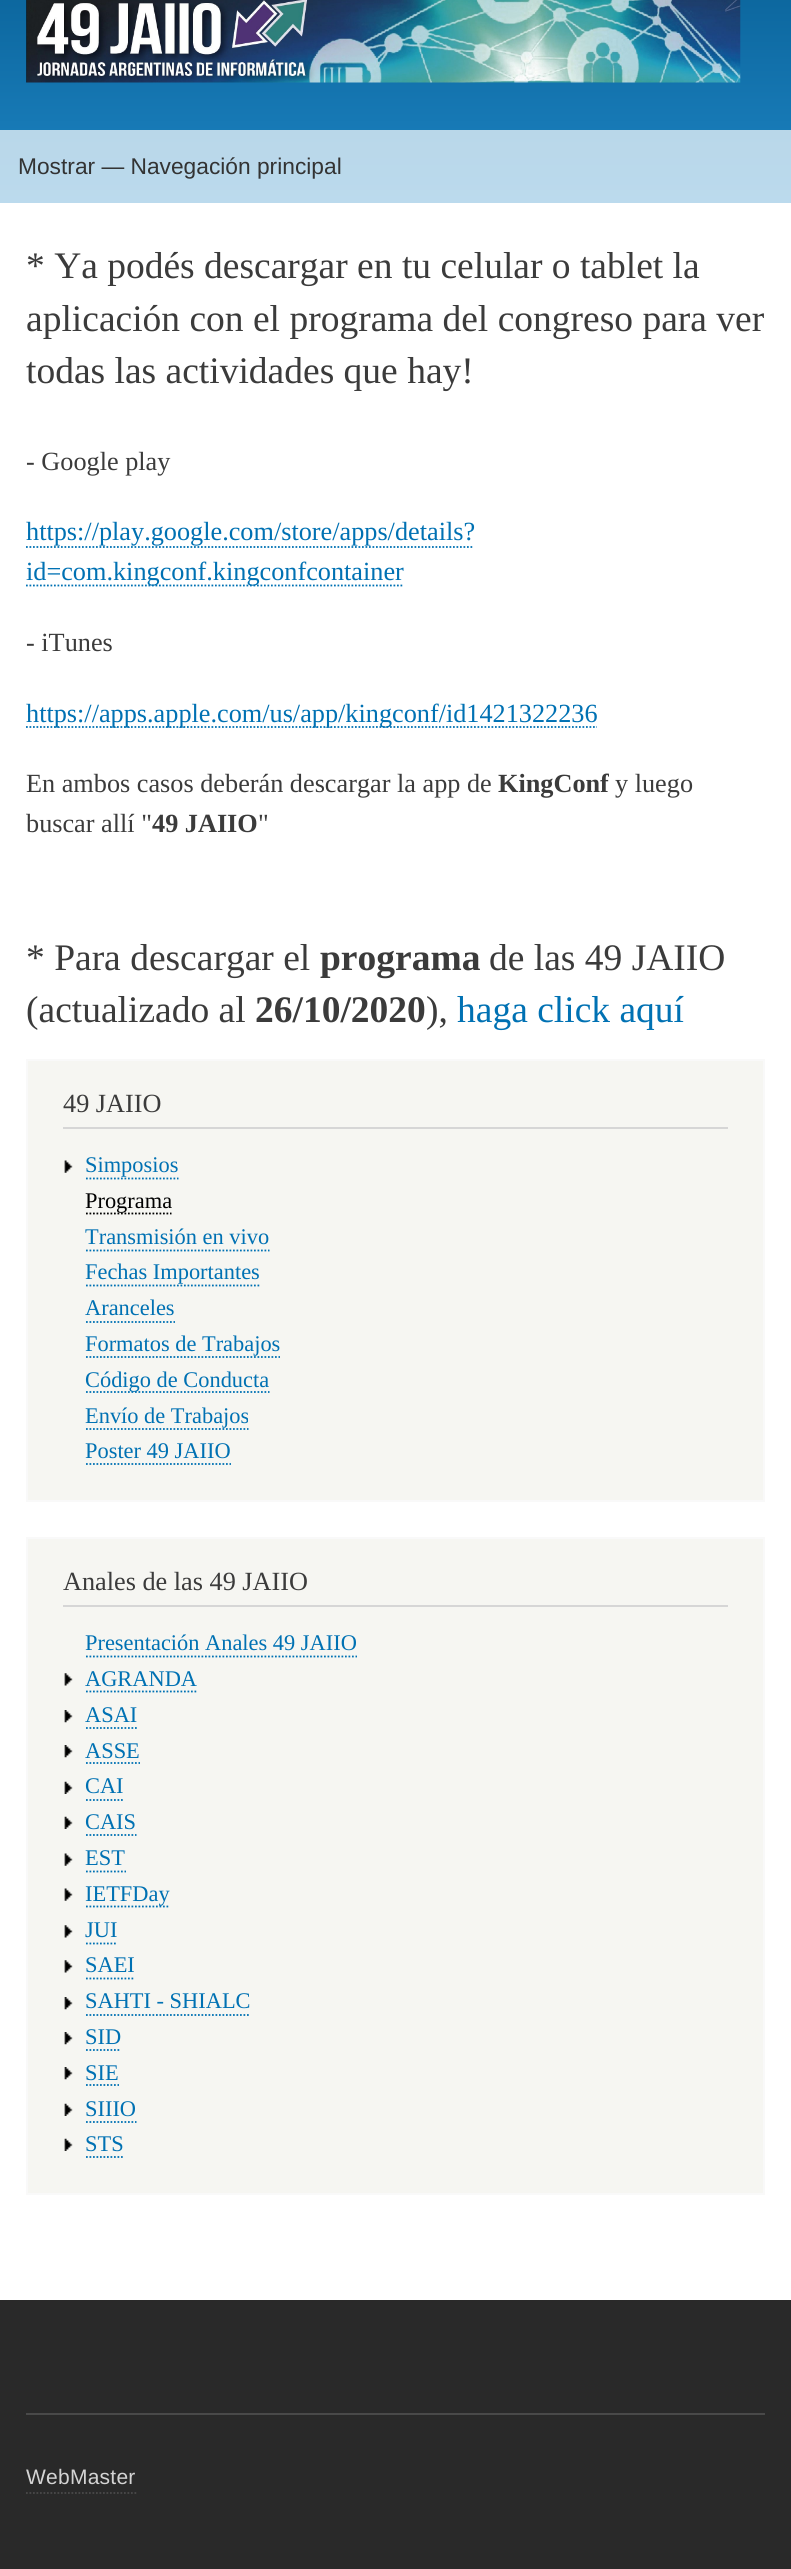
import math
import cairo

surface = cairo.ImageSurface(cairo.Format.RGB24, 791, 2569)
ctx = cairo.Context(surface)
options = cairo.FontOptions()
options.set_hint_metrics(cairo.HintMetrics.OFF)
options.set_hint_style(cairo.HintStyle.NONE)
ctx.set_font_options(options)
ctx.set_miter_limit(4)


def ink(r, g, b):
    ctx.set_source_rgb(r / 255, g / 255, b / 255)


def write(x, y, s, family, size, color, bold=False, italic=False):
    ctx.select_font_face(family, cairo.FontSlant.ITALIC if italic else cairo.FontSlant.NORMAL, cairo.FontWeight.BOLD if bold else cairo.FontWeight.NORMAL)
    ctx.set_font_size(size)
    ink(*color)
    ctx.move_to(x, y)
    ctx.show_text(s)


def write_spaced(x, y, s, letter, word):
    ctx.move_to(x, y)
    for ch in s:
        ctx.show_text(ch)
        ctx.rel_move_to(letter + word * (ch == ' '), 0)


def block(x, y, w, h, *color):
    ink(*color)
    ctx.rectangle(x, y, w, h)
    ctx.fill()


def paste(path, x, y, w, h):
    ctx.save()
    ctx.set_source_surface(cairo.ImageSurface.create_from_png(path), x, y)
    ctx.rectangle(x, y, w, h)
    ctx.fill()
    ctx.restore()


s1 = dict(family="Liberation Sans", size=22.75, color=(51, 51, 51))
s2 = dict(family="Liberation Serif", size=37.5, color=(59, 59, 59))
s3 = dict(family="Liberation Serif", size=26.25, color=(59, 59, 59))
s4 = dict(family="Liberation Serif", size=26.25, color=(0, 113, 179))
s5 = dict(family="Liberation Serif", size=26.25, color=(59, 59, 59), bold=True)
s6 = dict(family="Liberation Serif", size=37.5, color=(59, 59, 59), bold=True)
s7 = dict(family="Liberation Serif", size=37.5, color=(0, 113, 179))
s8 = dict(family="Liberation Serif", size=22.4, color=(0, 113, 179))
s9 = dict(family="Liberation Serif", size=22.4, color=(0, 0, 0))

ink(255, 255, 255)
ctx.paint()
gradient = cairo.LinearGradient(396, -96, 396, 203)
gradient.add_color_stop_rgba(0, 0.02, 0.353, 0.557, 1)
gradient.add_color_stop_rgba(1, 0.114, 0.518, 0.765, 1)
ctx.set_source(gradient)
ctx.rectangle(0, 0, 791, 130)
ctx.fill()
gradient = cairo.LinearGradient(396, -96, 396, 203)
gradient.add_color_stop_rgba(0, 0.706, 0.808, 0.867, 1)
gradient.add_color_stop_rgba(1, 0.733, 0.855, 0.929, 1)
ctx.set_source(gradient)
ctx.rectangle(0, 130, 791, 73)
ctx.fill()
paste("pic1.png", 26, 0, 715, 83)
write(18, 174, "Mostrar — Navegación principal", **s1)
write(26, 278, "* Ya podés descargar en tu celular o tablet la", **s2)
write(26, 331, "aplicación con el programa del congreso para ver", **s2)
write(26, 383, "todas las actividades que hay!", **s2)
write(26, 470, "- Google play", **s3)
write(26, 540, "https://play.google.com/store/apps/details?", **s4)
ctx.new_path()
ctx.move_to(26, 547)
ctx.line_to(474, 547)
ctx.set_line_width(1.8)
ctx.set_dash([1.75, 1.75])
ctx.stroke()
ctx.new_path()
ctx.move_to(26, 585.5)
ctx.line_to(404, 585.5)
ctx.stroke()
write(26, 580, "id=com.kingconf.kingconfcontainer", **s4)
write(26, 651, "- iTunes", **s3)
ctx.new_path()
ctx.move_to(26, 727)
ctx.line_to(597, 727)
ink(0, 113, 179)
ctx.stroke()
write(26, 722, "https://apps.apple.com/us/app/kingconf/id1421322236", **s4)
write(26, 792, "En ambos casos deberán descargar la app de", **s3)
write(498, 792, "KingConf", **s5)
write(615, 792, "y luego", **s3)
write(26, 832, "buscar allí \"", **s3)
write(152, 832, "49 JAIIO", **s5)
write(258, 832, "\"", **s3)
write(26, 970, "* Para descargar el", **s2)
write(320, 970, "programa", **s6)
write(489, 970, "de las 49 JAIIO", **s2)
write(26, 1022, "(actualizado al", **s2)
write(255, 1022, "26/10/2020", **s6)
write(426, 1022, "),", **s2)
write(457, 1022, "haga click aquí", **s7)
ink(246, 246, 242)
ctx.rectangle(27, 1060, 737, 441)
ctx.fill_preserve()
ink(249, 249, 249)
ctx.set_line_width(2)
ctx.set_dash([])
ctx.stroke()
block(63, 1127, 665, 2, 214, 214, 214)
write(63, 1112, "49 JAIIO", **s3)
paste("pic2.png", 64, 1160, 9, 13)
write(85, 1172, "Simposios", **s8)
ctx.new_path()
ctx.move_to(86, 1178.5)
ctx.line_to(178.5, 1178.5)
ctx.set_line_width(1.8)
ctx.set_dash([1.75, 1.75])
ctx.stroke()
ctx.new_path()
ctx.move_to(86, 1213.5)
ctx.line_to(171.5, 1213.5)
ink(0, 0, 0)
ctx.stroke()
write(85, 1208, "Programa", **s9)
write(85, 1244, "Transmisión en vivo", **s8)
ctx.new_path()
ctx.move_to(86, 1250.5)
ctx.line_to(269.5, 1250.5)
ctx.stroke()
write(85, 1279, "Fechas Importantes", **s8)
ctx.new_path()
ctx.move_to(86, 1285.5)
ctx.line_to(261, 1285.5)
ctx.stroke()
write(85, 1315, "Aranceles", **s8)
ctx.new_path()
ctx.move_to(86, 1322)
ctx.line_to(175, 1322)
ctx.stroke()
write(85, 1351, "Formatos de Trabajos", **s8)
ctx.new_path()
ctx.move_to(86, 1357)
ctx.line_to(280, 1357)
ctx.stroke()
ctx.new_path()
ctx.move_to(86, 1392)
ctx.line_to(269.5, 1392)
ctx.stroke()
write(85, 1387, "Código de Conducta", **s8)
write(85, 1423, "Envío de Trabajos", **s8)
ctx.new_path()
ctx.move_to(86, 1429)
ctx.line_to(248.5, 1429)
ctx.stroke()
write(85, 1458, "Poster 49 JAIIO", **s8)
ctx.new_path()
ctx.move_to(86, 1464)
ctx.line_to(231, 1464)
ctx.stroke()
ink(246, 246, 242)
ctx.rectangle(27, 1538, 737, 656)
ctx.fill_preserve()
ink(249, 249, 249)
ctx.set_line_width(2)
ctx.set_dash([])
ctx.stroke()
block(63, 1605, 665, 2, 214, 214, 214)
write(63, 1590, "Anales de las 49 JAIIO", **s3)
write(85, 1650, "Presentación Anales 49 JAIIO", **s8)
ctx.new_path()
ctx.move_to(86, 1656.5)
ctx.line_to(357, 1656.5)
ctx.set_line_width(1.8)
ctx.set_dash([1.75, 1.75])
ctx.stroke()
paste("pic3.png", 64, 1673, 9, 13)
write(85, 1686, "AGRANDA", **s8)
ctx.new_path()
ctx.move_to(86, 1691.5)
ctx.line_to(198, 1691.5)
ctx.stroke()
paste("pic4.png", 64, 1710, 9, 13)
write(85, 1722, "ASAI", **s8)
ctx.new_path()
ctx.move_to(86, 1728)
ctx.line_to(138, 1728)
ctx.stroke()
paste("pic4.png", 64, 1745, 9, 13)
write(85, 1758, "ASSE", **s8)
ctx.new_path()
ctx.move_to(86, 1763)
ctx.line_to(140, 1763)
ctx.stroke()
paste("pic5.png", 64, 1781, 9, 13)
write(85, 1793, "CAI", **s8)
ctx.new_path()
ctx.move_to(86, 1800)
ctx.line_to(124, 1800)
ctx.stroke()
paste("pic5.png", 64, 1816, 9, 13)
write(85, 1829, "CAIS", **s8)
ctx.new_path()
ctx.move_to(86, 1835)
ctx.line_to(136.5, 1835)
ctx.stroke()
paste("pic2.png", 64, 1853, 9, 13)
write(85, 1865, "EST", **s8)
ctx.new_path()
ctx.move_to(86, 1871.5)
ctx.line_to(126, 1871.5)
ctx.stroke()
paste("pic2.png", 64, 1888, 9, 13)
ctx.new_path()
ctx.move_to(86, 1906.5)
ctx.line_to(170, 1906.5)
ctx.stroke()
write(85, 1901, "IETFDay", **s8)
paste("pic3.png", 64, 1925, 9, 13)
write(85, 1937, "JUI", **s8)
ctx.new_path()
ctx.move_to(86, 1943.5)
ctx.line_to(117, 1943.5)
ctx.stroke()
paste("pic3.png", 64, 1960, 9, 13)
write(85, 1972, "SAEI", **s8)
ctx.new_path()
ctx.move_to(86, 1978.5)
ctx.line_to(135, 1978.5)
ctx.stroke()
paste("pic4.png", 64, 1997, 9, 13)
write(85, 2008, "SAHTI - SHIALC", **s8)
ctx.new_path()
ctx.move_to(86, 2015)
ctx.line_to(250, 2015)
ctx.stroke()
paste("pic4.png", 64, 2032, 9, 13)
write(85, 2044, "SID", **s8)
ctx.new_path()
ctx.move_to(86, 2050)
ctx.line_to(121, 2050)
ctx.stroke()
paste("pic4.png", 64, 2067, 9, 13)
write(85, 2080, "SIE", **s8)
ctx.new_path()
ctx.move_to(86, 2085)
ctx.line_to(119, 2085)
ctx.stroke()
paste("pic5.png", 64, 2103, 9, 13)
write(85, 2116, "SIIIO", **s8)
ctx.new_path()
ctx.move_to(86, 2122)
ctx.line_to(136.5, 2122)
ctx.stroke()
paste("pic5.png", 64, 2138, 9, 13)
write(85, 2151, "STS", **s8)
ctx.new_path()
ctx.move_to(86, 2157)
ctx.line_to(124, 2157)
ctx.stroke()
block(0, 2300, 791, 269, 41, 41, 41)
block(26, 2413, 739, 2, 73, 73, 73)
ctx.new_path()
ctx.move_to(26, 2493)
ctx.line_to(136.5, 2493)
ctx.stroke()
ctx.select_font_face("Liberation Sans")
ctx.set_font_size(21)
ink(212, 212, 212)
write_spaced(26, 2484, "WebMaster", 0.25, 0)
surface.write_to_png("screenshot.png")
